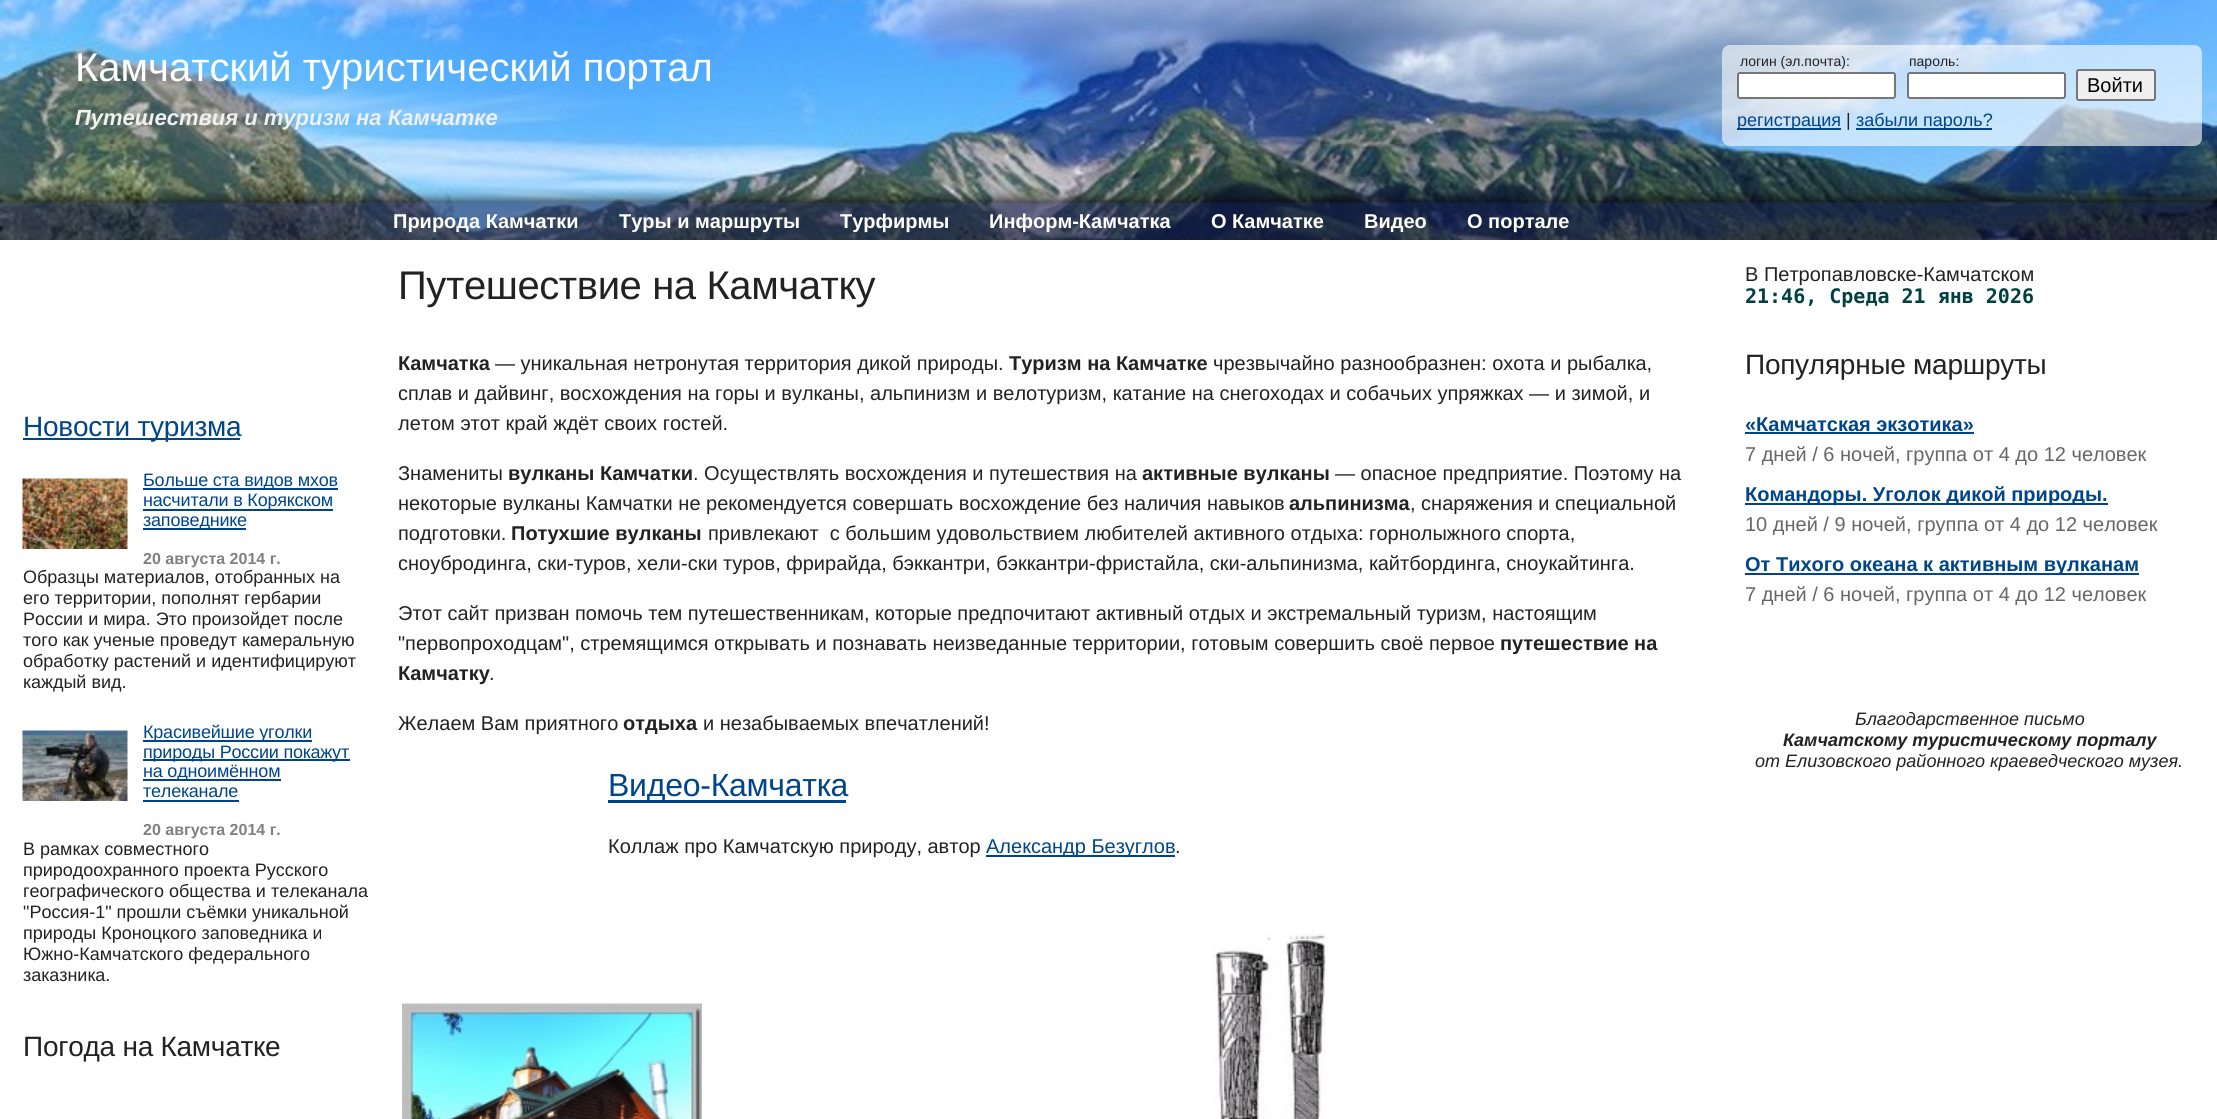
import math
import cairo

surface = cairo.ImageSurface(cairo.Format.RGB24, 2217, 1119)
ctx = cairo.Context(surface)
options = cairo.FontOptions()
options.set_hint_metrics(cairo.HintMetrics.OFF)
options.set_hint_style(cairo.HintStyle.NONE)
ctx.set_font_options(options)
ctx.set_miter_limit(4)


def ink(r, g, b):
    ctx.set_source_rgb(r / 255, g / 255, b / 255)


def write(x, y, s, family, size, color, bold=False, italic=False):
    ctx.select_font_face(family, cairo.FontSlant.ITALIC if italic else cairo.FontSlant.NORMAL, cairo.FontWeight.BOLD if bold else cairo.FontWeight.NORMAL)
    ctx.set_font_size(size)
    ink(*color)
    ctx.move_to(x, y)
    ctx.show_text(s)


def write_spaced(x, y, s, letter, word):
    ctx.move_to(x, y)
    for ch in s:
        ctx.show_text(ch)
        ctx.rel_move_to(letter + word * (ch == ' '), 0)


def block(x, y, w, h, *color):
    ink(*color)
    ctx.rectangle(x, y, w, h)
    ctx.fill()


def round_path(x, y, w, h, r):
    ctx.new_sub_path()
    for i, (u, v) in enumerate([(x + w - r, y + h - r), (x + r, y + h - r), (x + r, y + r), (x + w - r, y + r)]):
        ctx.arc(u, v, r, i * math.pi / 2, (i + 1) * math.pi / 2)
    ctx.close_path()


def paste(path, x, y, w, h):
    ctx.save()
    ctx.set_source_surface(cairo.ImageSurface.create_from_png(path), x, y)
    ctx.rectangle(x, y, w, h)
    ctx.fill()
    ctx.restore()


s1 = dict(family="Liberation Sans", size=40, color=(255, 255, 255))
s2 = dict(family="Liberation Sans", size=14, color=(34, 34, 34))
s3 = dict(family="Liberation Sans", size=20, color=(0, 0, 0))
s4 = dict(family="Liberation Sans", size=18, color=(0, 69, 138))
s5 = dict(family="Liberation Sans", size=18, color=(34, 34, 34))
s6 = dict(family="Liberation Sans", size=22, color=(240, 240, 240), bold=True, italic=True)
s7 = dict(family="Liberation Sans", size=20, color=(255, 255, 255), bold=True)
s8 = dict(family="Liberation Sans", size=16, color=(128, 128, 128), bold=True)
s9 = dict(family="Liberation Sans", size=20, color=(34, 34, 34))
s10 = dict(family="DejaVu Sans Mono", size=20, color=(0, 64, 64), bold=True)
s11 = dict(family="Liberation Sans", size=20, color=(34, 34, 34), bold=True)
s12 = dict(family="Liberation Sans", size=20, color=(0, 69, 138), bold=True)
s13 = dict(family="Liberation Sans", size=20, color=(102, 102, 102))
s14 = dict(family="Liberation Sans", size=18, color=(34, 34, 34), italic=True)
s15 = dict(family="Liberation Sans", size=18, color=(34, 34, 34), bold=True, italic=True)
s16 = dict(family="Liberation Sans", size=20, color=(0, 69, 138))

ink(255, 255, 255)
ctx.paint()
paste("pic1.png", 0, 0, 2217, 240)
write(75, 81, "Камчатский туристический портал", **s1)
ctx.set_source_rgba(1, 1, 1, 0.6)
round_path(1722, 45, 480, 101, 8)
ctx.fill()
write(1740, 66, "логин (эл.почта):", **s2)
write(1909, 66, "пароль:", **s2)
ink(255, 255, 255)
round_path(1738, 73, 157, 25, 2)
ctx.fill_preserve()
ink(118, 118, 118)
ctx.stroke()
ink(255, 255, 255)
round_path(1908, 73, 157, 25, 2)
ctx.fill_preserve()
ink(118, 118, 118)
ctx.stroke()
ink(239, 239, 239)
round_path(2077, 70, 78, 30, 2)
ctx.fill_preserve()
ink(118, 118, 118)
ctx.stroke()
write(2087, 92, "Войти", **s3)
block(1737, 128, 104, 2, 0, 69, 138)
write(1737, 126, "регистрация", **s4)
write(1846, 126, "|", **s5)
block(1856, 128, 136, 2, 0, 69, 138)
write(1856, 126, "забыли пароль?", **s4)
write(75, 125, "Путешествия и туризм на Камчатке", **s6)
paste("pic2.png", 0, 188, 2217, 52)
write(393, 228, "Природа Камчатки", **s7)
write(619, 228, "Туры и маршруты", **s7)
write(840, 228, "Турфирмы", **s7)
write(989, 228, "Информ-Камчатка", **s7)
write(1211, 228, "О Камчатке", **s7)
write(1364, 228, "Видео", **s7)
write(1467, 228, "О портале", **s7)
block(23, 438, 217, 2, 0, 69, 138)
ctx.select_font_face("Liberation Sans")
ctx.set_font_size(28)
write_spaced(23, 436, "Новости туризма", -0.25, 0)
paste("pic3.png", 22, 478, 106, 71)
block(143, 488, 195, 2, 0, 69, 138)
ctx.set_font_size(18)
write_spaced(143, 486, "Больше ста видов мхов", -0.2, 0)
block(143, 509, 190, 2, 0, 69, 138)
write_spaced(143, 506, "насчитали в Корякском", -0.2, 0)
block(143, 528, 103, 2, 0, 69, 138)
write_spaced(143, 526, "заповеднике", -0.2, 0)
write(143, 564, "20 августа 2014 г.", **s8)
write(23, 583, "Образцы материалов, отобранных на", **s5)
write(23, 604, "его территории, пополнят гербарии", **s5)
write(23, 625, "России и мира. Это произойдет после", **s5)
write(23, 646, "того как ученые проведут камеральную", **s5)
write(23, 667, "обработку растений и идентифицируют", **s5)
write(23, 688, "каждый вид.", **s5)
paste("pic4.png", 22, 730, 106, 71)
block(143, 740, 169, 2, 0, 69, 138)
write_spaced(143, 738, "Красивейшие уголки", -0.2, 0)
block(143, 759, 207, 2, 0, 69, 138)
write_spaced(143, 758, "природы России покажут", -0.2, 0)
block(143, 779, 138, 2, 0, 69, 138)
write_spaced(143, 777, "на одноимённом", -0.2, 0)
write_spaced(143, 797, "телеканале", -0.2, 0)
block(143, 800, 96, 2, 0, 69, 138)
write(143, 835, "20 августа 2014 г.", **s8)
write(23, 855, "В рамках совместного", **s5)
write(23, 876, "природоохранного проекта Русского", **s5)
write(23, 897, "географического общества и телеканала", **s5)
write(23, 918, "\"Россия-1\" прошли съёмки уникальной", **s5)
write(23, 939, "природы Кроноцкого заповедника и", **s5)
write(23, 960, "Южно-Камчатского федерального", **s5)
write(23, 981, "заказника.", **s5)
ctx.set_font_size(28)
write_spaced(23, 1056, "Погода на Камчатке", -0.25, 0)
ctx.set_font_size(40)
write_spaced(398, 299, "Путешествие на Камчатку", -0.4, 0)
write(1745, 281, "В Петропавловске-Камчатском", **s9)
write(1745, 303, "21:46, Среда 21 янв 2026", **s10)
write(398, 370, "Камчатка", **s11)
write(495, 370, "— уникальная нетронутая территория дикой природы.", **s9)
write(1009, 370, "Туризм на Камчатке", **s11)
write(1213, 370, "чрезвычайно разнообразнен: охота и рыбалка,", **s9)
write(398, 400, "сплав и дайвинг, восхождения на горы и вулканы, альпинизм и велотуризм, катание на снегоходах и собачьих упряжках — и зимой, и", **s9)
write(398, 430, "летом этот край ждёт своих гостей.", **s9)
ctx.set_font_size(28)
write_spaced(1745, 374, "Популярные маршруты", -0.25, 0)
write(1745, 431, "«Камчатская экзотика»", **s12)
block(1745, 432, 229, 2, 0, 69, 138)
write(1745, 461, "7 дней / 6 ночей, группа от 4 до 12 человек", **s13)
block(1745, 503, 363, 2, 0, 69, 138)
write(1745, 501, "Командоры. Уголок дикой природы.", **s12)
write(1745, 531, "10 дней / 9 ночей, группа от 4 до 12 человек", **s13)
block(1745, 573, 394, 2, 0, 69, 138)
write(1745, 571, "От Тихого океана к активным вулканам", **s12)
write(1745, 601, "7 дней / 6 ночей, группа от 4 до 12 человек", **s13)
write(1855, 725, "Благодарственное письмо", **s14)
write(1783, 746, "Камчатскому туристическому порталу", **s15)
write(1755, 767, "от Елизовского районного краеведческого музея.", **s14)
write(398, 480, "Знамениты", **s9)
write(508, 480, "вулканы Камчатки", **s11)
write(693, 480, ". Осуществлять восхождения и путешествия на", **s9)
write(1142, 480, "активные вулканы", **s11)
write(1335, 480, "— опасное предприятие. Поэтому на", **s9)
write(398, 510, "некоторые вулканы Камчатки не рекомендуется совершать восхождение без наличия навыков", **s9)
write(1289, 510, "альпинизма", **s11)
write(1410, 510, ", снаряжения и специальной", **s9)
write(398, 540, "подготовки.", **s9)
write(511, 540, "Потухшие вулканы", **s11)
write(708, 540, "привлекают  с большим удовольствием любителей активного отдыха: горнолыжного спорта,", **s9)
write(398, 570, "сноубродинга, ски-туров, хели-ски туров, фрирайда, бэккантри, бэккантри-фристайла, ски-альпинизма, кайтбординга, сноукайтинга.", **s9)
write(398, 620, "Этот сайт призван помочь тем путешественникам, которые предпочитают активный отдых и экстремальный туризм, настоящим", **s9)
write(398, 650, "\"первопроходцам\", стремящимся открывать и познавать неизведанные территории, готовым совершить своё первое", **s9)
write(1500, 650, "путешествие на", **s11)
write(398, 680, "Камчатку", **s11)
write(489, 680, ".", **s9)
write(398, 730, "Желаем Вам приятного", **s9)
write(623, 730, "отдыха", **s11)
write(703, 730, "и незабываемых впечатлений!", **s9)
block(608, 800, 238, 3, 0, 69, 138)
ctx.set_font_size(32)
write_spaced(608, 796, "Видео-Камчатка", -0.25, 0)
write(608, 853, "Коллаж про Камчатскую природу, автор", **s9)
block(986, 855, 189, 2, 0, 69, 138)
write(986, 853, "Александр Безуглов", **s16)
write(1175, 853, ".", **s9)
paste("pic5.png", 402, 1003, 300, 116)
paste("pic6.png", 1213, 933, 114, 186)
surface.write_to_png("screenshot.png")
